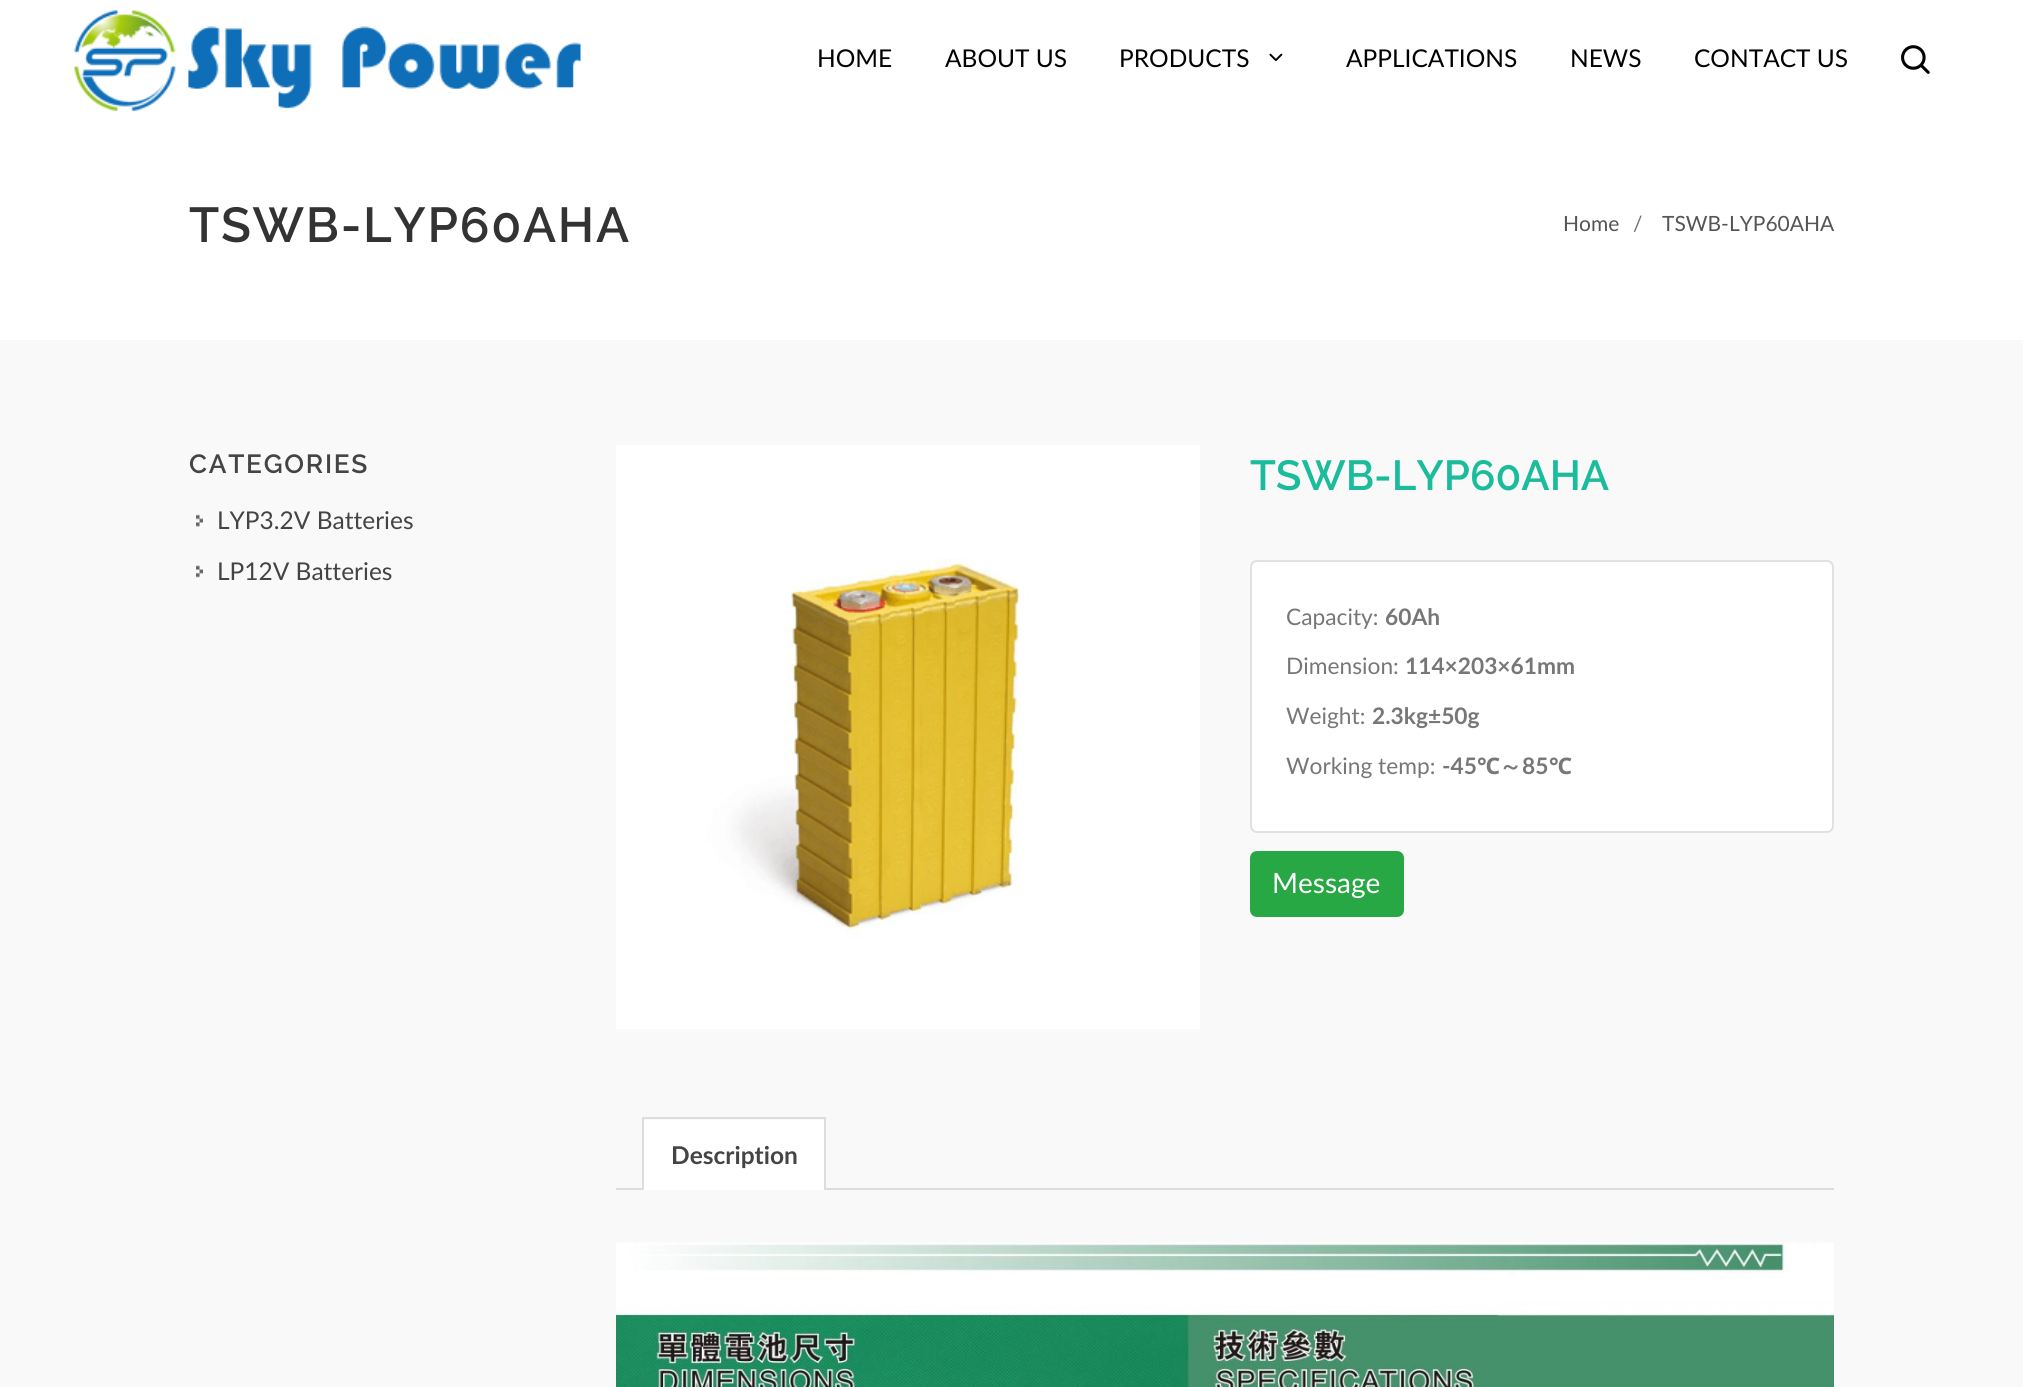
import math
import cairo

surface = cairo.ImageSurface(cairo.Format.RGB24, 2023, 1387)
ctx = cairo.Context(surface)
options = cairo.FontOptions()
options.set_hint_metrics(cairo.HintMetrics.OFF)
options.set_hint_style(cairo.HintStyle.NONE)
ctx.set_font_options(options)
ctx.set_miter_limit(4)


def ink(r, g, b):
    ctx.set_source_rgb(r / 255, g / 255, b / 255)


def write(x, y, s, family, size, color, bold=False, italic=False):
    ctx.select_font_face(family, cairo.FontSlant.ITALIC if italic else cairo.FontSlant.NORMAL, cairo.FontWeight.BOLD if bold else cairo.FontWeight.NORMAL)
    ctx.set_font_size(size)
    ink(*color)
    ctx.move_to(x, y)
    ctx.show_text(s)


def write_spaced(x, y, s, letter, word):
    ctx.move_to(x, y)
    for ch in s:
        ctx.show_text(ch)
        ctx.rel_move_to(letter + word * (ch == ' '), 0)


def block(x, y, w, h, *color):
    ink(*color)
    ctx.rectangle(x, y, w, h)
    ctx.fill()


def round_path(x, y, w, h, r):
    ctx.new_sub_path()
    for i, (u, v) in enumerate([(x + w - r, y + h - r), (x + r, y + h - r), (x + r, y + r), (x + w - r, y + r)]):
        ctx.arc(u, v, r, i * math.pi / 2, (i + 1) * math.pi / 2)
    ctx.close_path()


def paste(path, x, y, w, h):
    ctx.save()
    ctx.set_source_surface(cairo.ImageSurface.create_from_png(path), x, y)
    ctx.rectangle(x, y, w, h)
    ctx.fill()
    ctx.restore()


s1 = dict(family="Lato", size=24.5, color=(1, 1, 1))
s2 = dict(family="Lato", size=21, color=(85, 85, 85))
s3 = dict(family="Lato", size=21, color=(108, 117, 125))
s4 = dict(family="Lato", size=24.5, color=(68, 68, 68))
s5 = dict(family="Raleway SemiBold", size=42, color=(26, 188, 156))
s6 = dict(family="Lato", size=22.75, color=(119, 119, 119))
s7 = dict(family="Lato", size=22.75, color=(119, 119, 119), bold=True)
s8 = dict(family="Noto Sans", size=22.75, color=(119, 119, 119), bold=True)
s9 = dict(family="WenQuanYi Zen Hei", size=22.75, color=(119, 119, 119), bold=True)
s10 = dict(family="Lato", size=28, color=(255, 255, 255))
s11 = dict(family="Lato", size=24.5, color=(68, 68, 68), bold=True)

ink(255, 255, 255)
ctx.paint()
paste("pic1.png", 74, 10, 507, 102)
write(817, 67, "HOME", **s1)
write(945, 67, "ABOUT US", **s1)
write(1119, 67, "PRODUCTS", **s1)
paste("pic2.png", 1269, 53, 14, 8)
write(1346, 67, "APPLICATIONS", **s1)
write(1570, 67, "NEWS", **s1)
write(1694, 67, "CONTACT US", **s1)
paste("pic3.png", 1901, 45, 29, 29)
block(0, 340, 2023, 1047, 249, 249, 249)
ctx.select_font_face("Raleway SemiBold")
ctx.set_font_size(49)
ink(51, 51, 51)
write_spaced(189, 242, "TSWB-LYP60AHA", 1.75, 0)
write(1563, 231, "Home", **s2)
write(1633, 231, "/", **s3)
write(1662, 231, "TSWB-LYP60AHA", **s2)
ctx.select_font_face("Raleway SemiBold")
ctx.set_font_size(26.25)
ink(68, 68, 68)
write_spaced(189, 473, "CATEGORIES", 1.75, 0)
paste("pic4.png", 196, 514, 7, 13)
write(217, 529, "LYP3.2V Batteries", **s4)
paste("pic5.png", 196, 565, 7, 13)
write(217, 580, "LP12V Batteries", **s4)
paste("pic6.png", 616, 445, 584, 584)
write(1250, 490, "TSWB-LYP60AHA", **s5)
ink(255, 255, 255)
round_path(1250, 560, 584, 273, 7)
ctx.fill()
round_path(1251, 561, 582, 271, 6)
ctx.set_source_rgba(0, 0, 0, 0.12)
ctx.stroke()
write(1286, 625, "Capacity:", **s6)
write(1385, 625, "60Ah", **s7)
write(1286, 674, "Dimension:", **s6)
write(1405, 674, "114×203×61mm", **s7)
write(1286, 724, "Weight:", **s6)
write(1372, 724, "2.3kg±50g", **s7)
write(1286, 774, "Working temp:", **s6)
write(1442, 774, "-45", **s7)
write(1477, 774, "℃", **s8)
write(1499, 774, "～", **s9)
write(1522, 774, "85", **s7)
write(1549, 774, "℃", **s8)
ink(40, 167, 69)
round_path(1251, 852, 152, 64, 6)
ctx.fill_preserve()
ctx.stroke()
write(1272, 893, "Message", **s10)
block(616, 1188, 1218, 2, 221, 221, 221)
block(642, 1117, 184, 2, 221, 221, 221)
block(824, 1117, 2, 71, 221, 221, 221)
block(642, 1117, 2, 71, 221, 221, 221)
block(644, 1120, 180, 70, 255, 255, 255)
write(671, 1164, "Description", **s11)
paste("pic7.png", 616, 1242, 1218, 145)
surface.write_to_png("screenshot.png")
